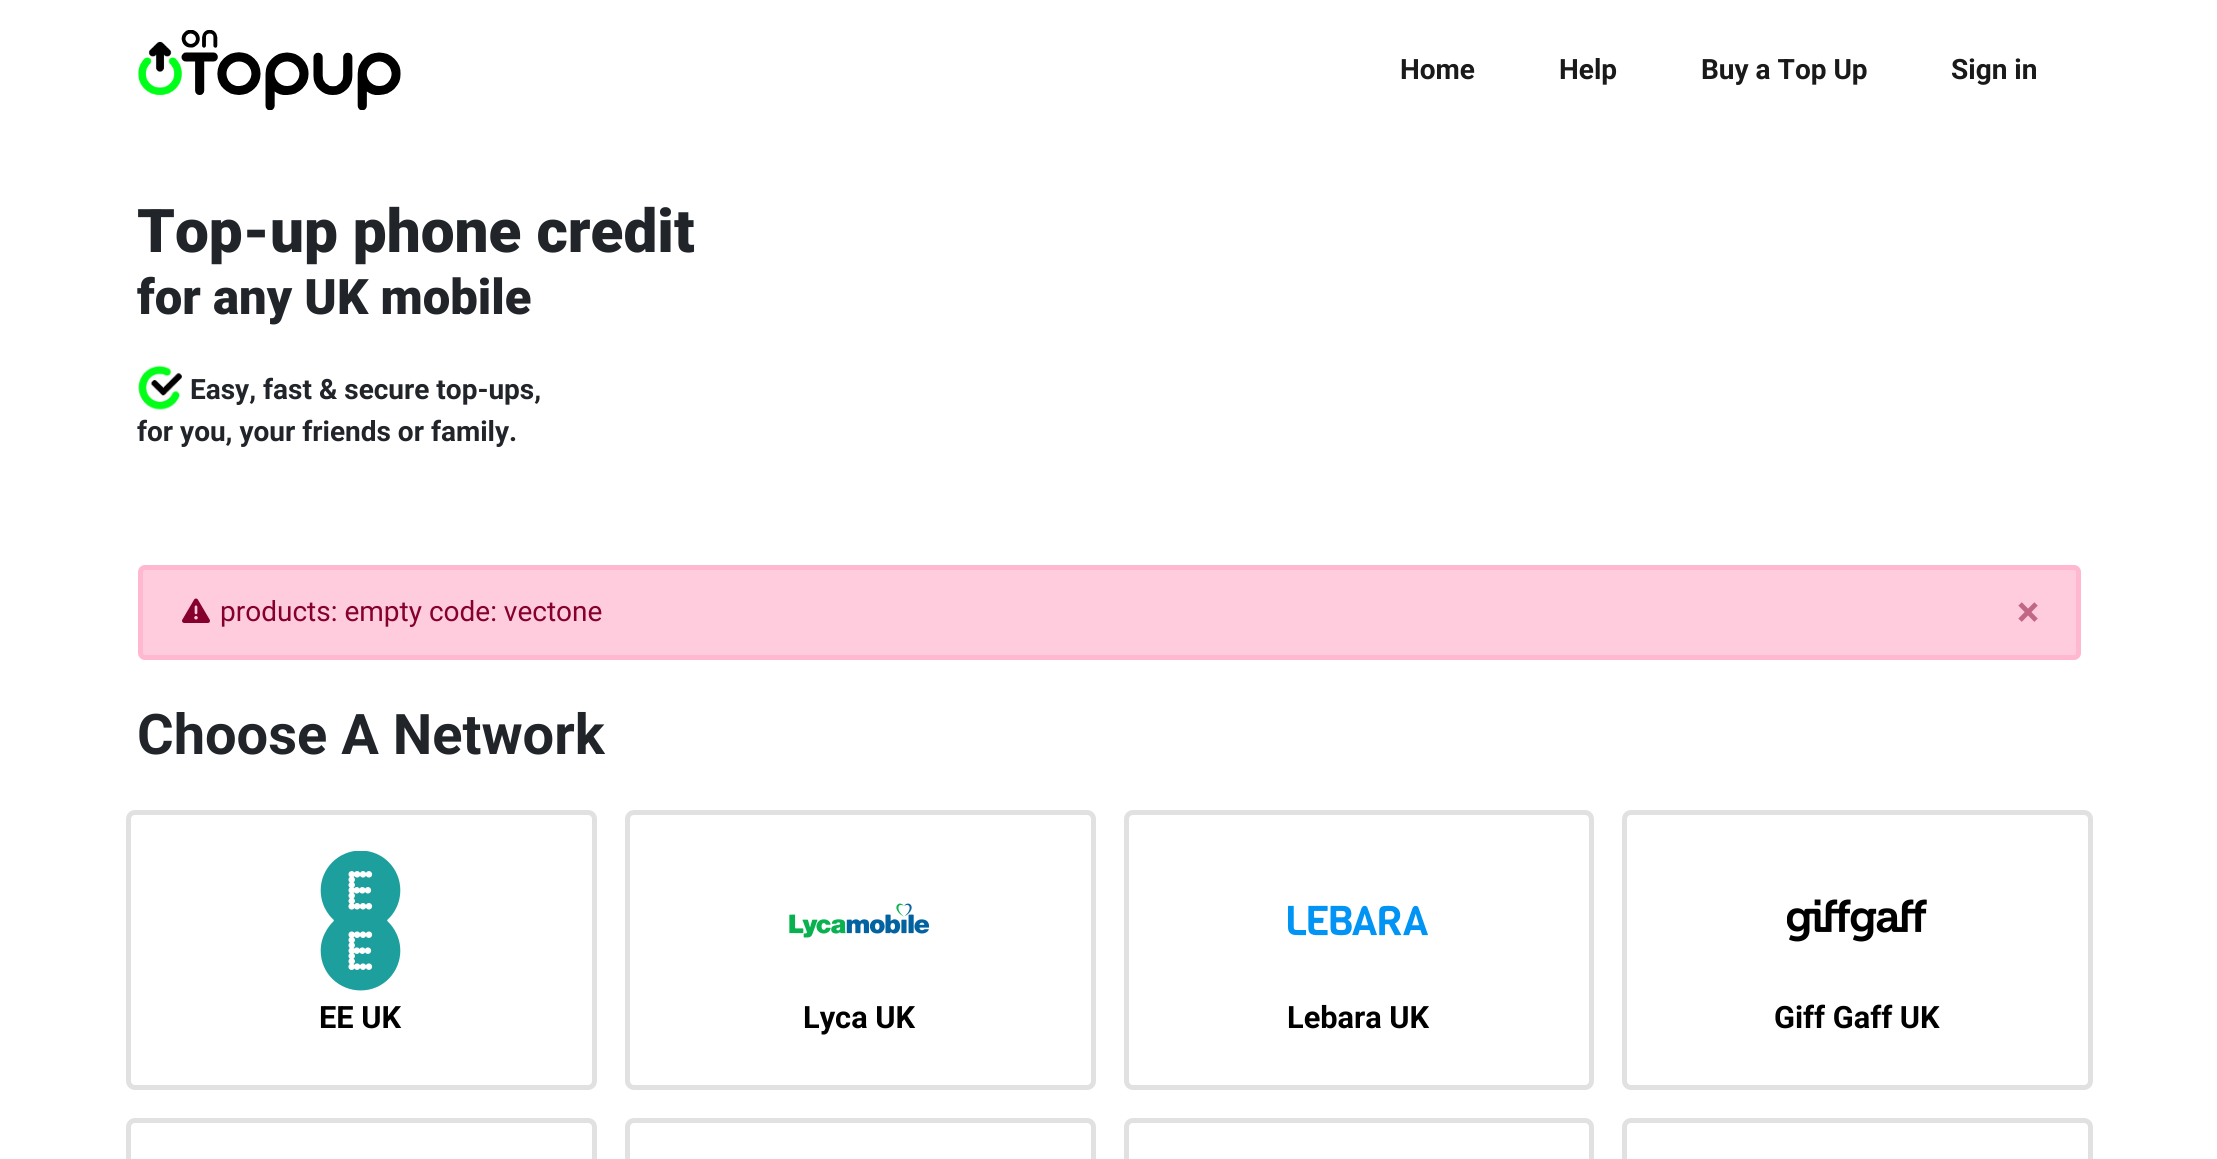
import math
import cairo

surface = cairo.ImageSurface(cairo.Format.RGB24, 2217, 1159)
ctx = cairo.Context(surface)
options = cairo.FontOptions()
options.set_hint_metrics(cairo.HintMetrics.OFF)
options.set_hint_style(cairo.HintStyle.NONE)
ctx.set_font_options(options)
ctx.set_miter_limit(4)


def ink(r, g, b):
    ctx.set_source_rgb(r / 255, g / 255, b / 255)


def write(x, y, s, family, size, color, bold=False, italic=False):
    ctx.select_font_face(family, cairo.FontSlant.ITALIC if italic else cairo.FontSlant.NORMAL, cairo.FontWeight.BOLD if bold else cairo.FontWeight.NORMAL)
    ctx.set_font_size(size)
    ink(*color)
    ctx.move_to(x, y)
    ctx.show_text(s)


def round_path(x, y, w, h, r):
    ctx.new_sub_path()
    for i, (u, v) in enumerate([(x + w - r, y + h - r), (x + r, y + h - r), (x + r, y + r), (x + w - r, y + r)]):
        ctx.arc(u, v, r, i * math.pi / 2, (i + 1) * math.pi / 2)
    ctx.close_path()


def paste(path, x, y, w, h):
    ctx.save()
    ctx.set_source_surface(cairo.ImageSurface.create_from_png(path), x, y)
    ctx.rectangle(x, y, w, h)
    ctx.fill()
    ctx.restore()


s1 = dict(family="Roboto", size=28, color=(26, 26, 26), bold=True)
s2 = dict(family="Roboto Black", size=60.25, color=(33, 37, 41))
s3 = dict(family="Roboto Black", size=49, color=(33, 37, 41))
s4 = dict(family="Roboto", size=28, color=(33, 37, 41), bold=True)
s5 = dict(family="Roboto", size=28, color=(133, 0, 44))
s6 = dict(family="Roboto", size=42, color=(194, 102, 133), bold=True)
s7 = dict(family="Roboto", size=56, color=(33, 37, 41), bold=True)
s8 = dict(family="Roboto", size=30.75, color=(0, 0, 0), bold=True)

ink(255, 255, 255)
ctx.paint()
paste("pic1.png", 138, 30, 263, 80)
write(1400, 79, "Home", **s1)
write(1559, 79, "Help", **s1)
write(1701, 79, "Buy a Top Up", **s1)
write(1951, 79, "Sign in", **s1)
write(137, 252, "Top-up phone credit", **s2)
write(137, 314, "for any UK mobile", **s3)
paste("pic2.png", 138, 365, 44, 45)
write(190, 399, "Easy, fast & secure top-ups,", **s4)
write(137, 441, "for you, your friends or family.", **s4)
ink(255, 204, 221)
round_path(140.5, 567.5, 1938, 90, 4.5)
ctx.fill_preserve()
ink(255, 184, 207)
ctx.set_line_width(5)
ctx.stroke()
paste("pic3.png", 182, 598, 28, 25)
write(220, 621, "products: empty code: vectone", **s5)
write(2017, 626, "×", **s6)
write(137, 754, "Choose A Network", **s7)
round_path(128.5, 812.5, 466, 275, 6.5)
ink(225, 225, 225)
ctx.stroke()
paste("pic4.png", 320, 851, 81, 140)
write(319, 1028, "EE UK", **s8)
round_path(627.5, 812.5, 466, 275, 6.5)
ink(225, 225, 225)
ctx.stroke()
paste("pic5.png", 789, 903, 140, 35)
write(803, 1028, "Lyca UK", **s8)
round_path(1126.5, 812.5, 465, 275, 6.5)
ink(225, 225, 225)
ctx.stroke()
paste("pic6.png", 1288, 905, 140, 31)
write(1287, 1028, "Lebara UK", **s8)
round_path(1624.5, 812.5, 466, 275, 6.5)
ink(225, 225, 225)
ctx.stroke()
paste("pic7.png", 1787, 899, 140, 43)
write(1774, 1028, "Giff Gaff UK", **s8)
round_path(128.5, 1120.5, 466, 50, 6.5)
ink(225, 225, 225)
ctx.stroke()
round_path(627.5, 1120.5, 466, 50, 6.5)
ctx.stroke()
round_path(1126.5, 1120.5, 465, 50, 6.5)
ctx.stroke()
round_path(1624.5, 1120.5, 466, 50, 6.5)
ctx.stroke()
surface.write_to_png("screenshot.png")
